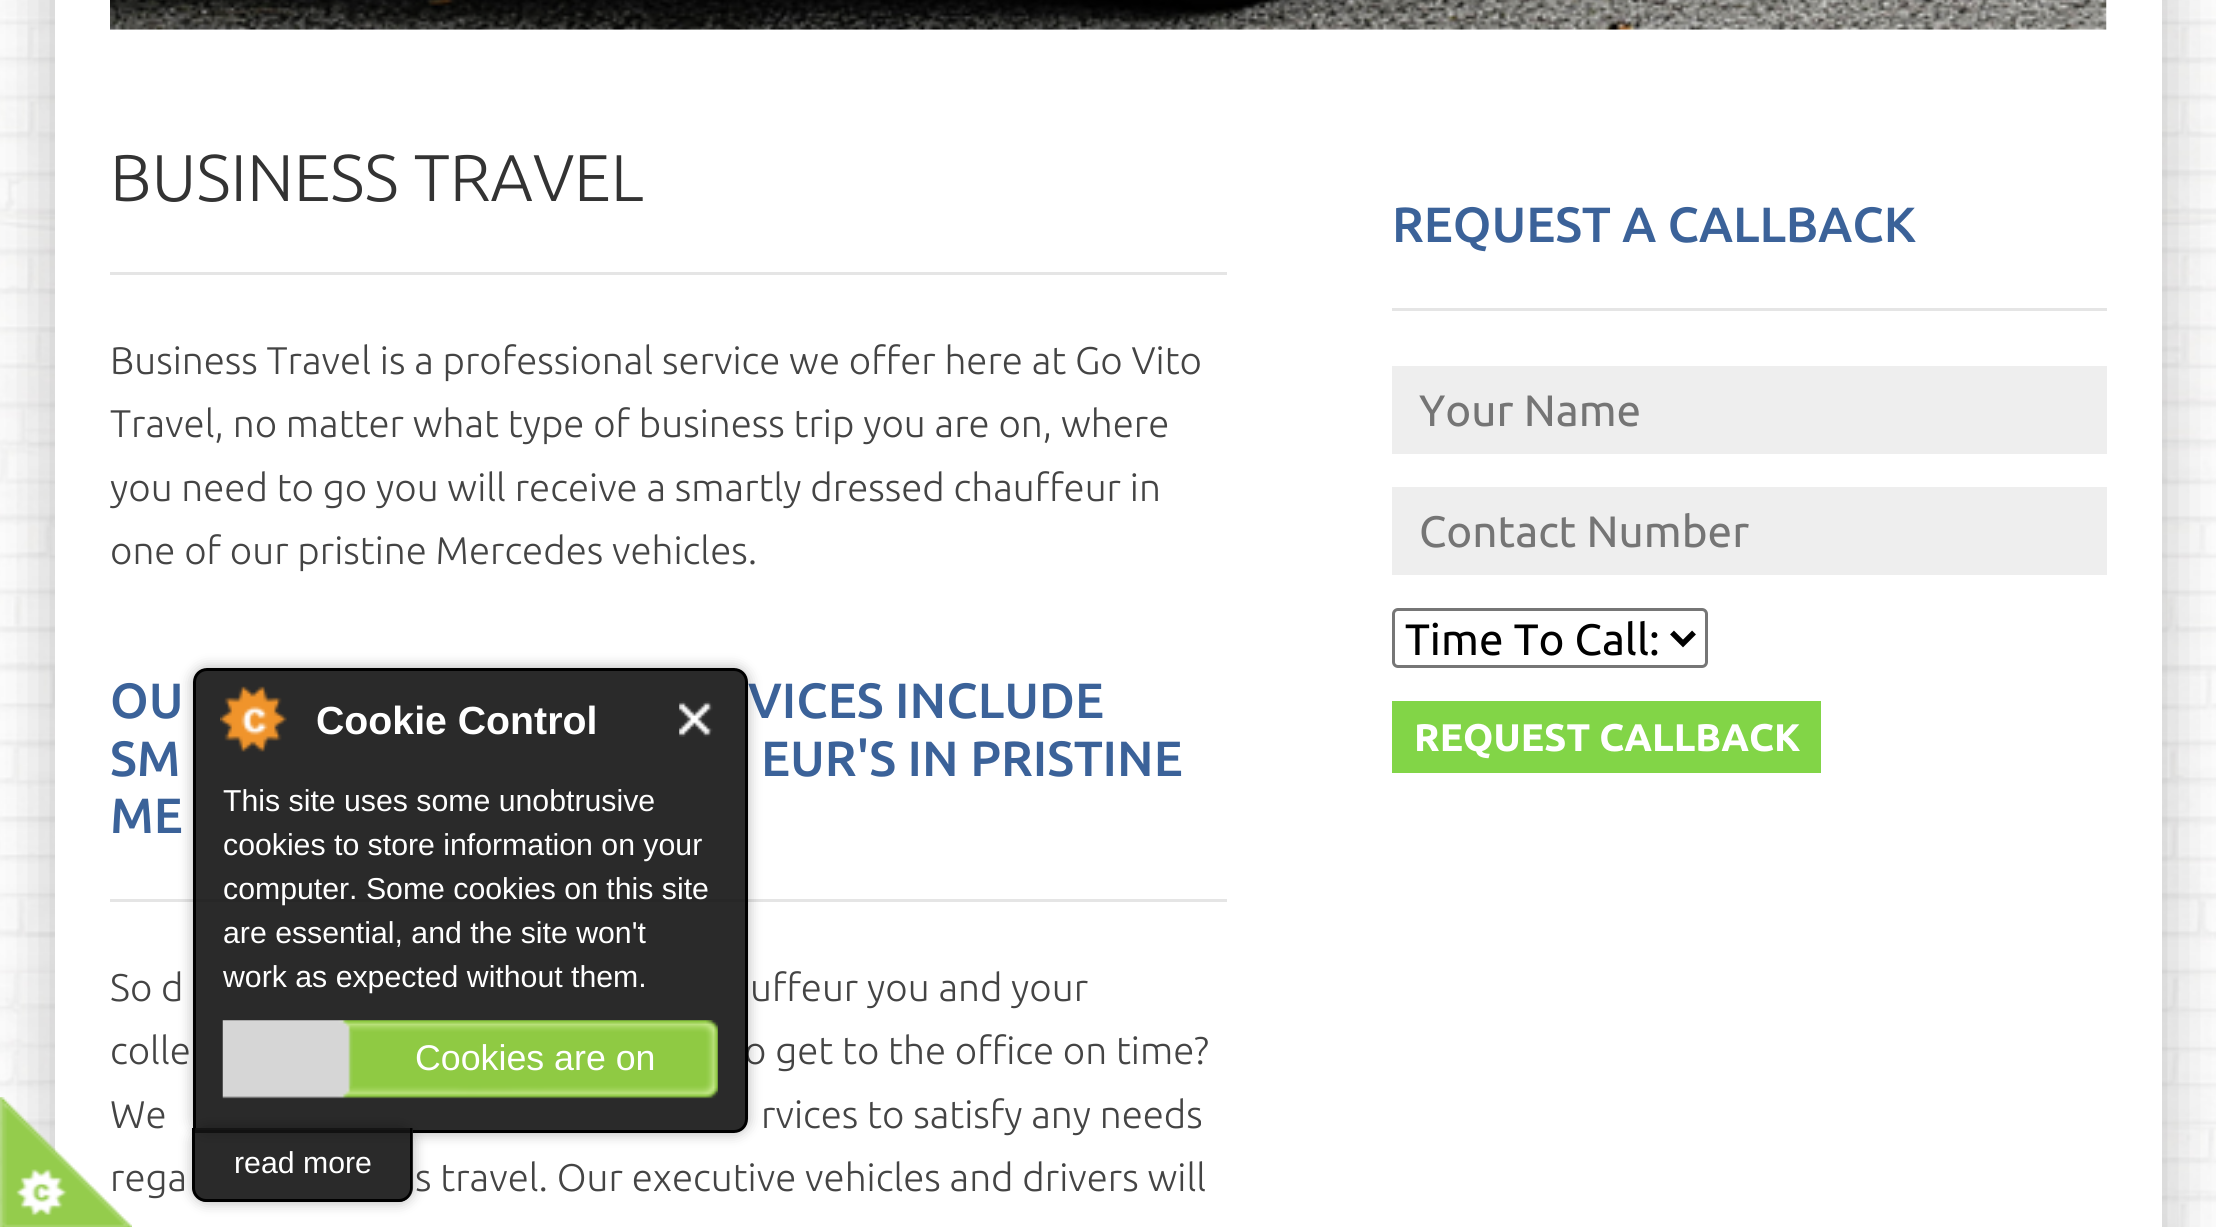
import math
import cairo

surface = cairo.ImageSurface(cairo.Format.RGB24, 2216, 1227)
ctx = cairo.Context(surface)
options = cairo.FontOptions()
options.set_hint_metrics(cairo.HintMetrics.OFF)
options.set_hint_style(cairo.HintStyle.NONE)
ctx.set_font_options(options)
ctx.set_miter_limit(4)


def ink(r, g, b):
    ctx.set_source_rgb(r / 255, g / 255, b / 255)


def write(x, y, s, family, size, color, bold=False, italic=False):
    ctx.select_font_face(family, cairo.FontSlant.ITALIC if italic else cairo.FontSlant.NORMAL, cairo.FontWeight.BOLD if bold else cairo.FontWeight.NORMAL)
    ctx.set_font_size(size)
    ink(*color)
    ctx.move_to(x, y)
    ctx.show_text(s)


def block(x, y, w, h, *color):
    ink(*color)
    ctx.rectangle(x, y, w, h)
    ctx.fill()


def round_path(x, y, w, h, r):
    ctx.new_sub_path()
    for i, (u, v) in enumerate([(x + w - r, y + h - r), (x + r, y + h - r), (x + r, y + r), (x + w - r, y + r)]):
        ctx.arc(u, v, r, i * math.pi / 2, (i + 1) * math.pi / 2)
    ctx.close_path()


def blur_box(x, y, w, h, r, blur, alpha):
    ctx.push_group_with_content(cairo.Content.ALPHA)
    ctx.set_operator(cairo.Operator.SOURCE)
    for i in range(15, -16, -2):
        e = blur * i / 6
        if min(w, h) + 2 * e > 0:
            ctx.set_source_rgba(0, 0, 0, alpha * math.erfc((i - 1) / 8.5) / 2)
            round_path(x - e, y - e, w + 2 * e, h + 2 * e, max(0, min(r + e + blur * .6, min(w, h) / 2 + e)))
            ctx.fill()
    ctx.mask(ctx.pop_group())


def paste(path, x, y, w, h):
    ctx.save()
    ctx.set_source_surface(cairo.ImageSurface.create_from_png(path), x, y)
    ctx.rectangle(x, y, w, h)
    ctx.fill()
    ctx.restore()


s1 = dict(family="Ubuntu Light", size=66, color=(51, 51, 51))
s2 = dict(family="Ubuntu Light", size=38.5, color=(68, 68, 68))
s3 = dict(family="Ubuntu Medium", size=49.5, color=(59, 98, 153))
s4 = dict(family="Ubuntu", size=44, color=(117, 117, 117))
s5 = dict(family="Ubuntu", size=44, color=(0, 0, 0))
s6 = dict(family="Ubuntu", size=38.5, color=(255, 255, 255), bold=True)
s7 = dict(family="Liberation Sans", size=39.25, color=(255, 255, 255), bold=True)
s8 = dict(family="Liberation Sans", size=30.25, color=(255, 255, 255))
s9 = dict(family="Liberation Sans", size=35.75, color=(255, 255, 255))

ink(255, 255, 255)
ctx.paint()
paste("pic1.png", 0, 0, 2216, 1227)
ink(0, 0, 0)
blur_box(55, -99, 2107, 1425, 0, 33, 0.25)
block(55, 0, 2107, 1227, 255, 255, 255)
paste("pic2.png", 110, 0, 1997, 30)
block(110, 272, 1117, 3, 229, 229, 229)
write(110, 201, "BUSINESS TRAVEL", **s1)
write(110, 374, "Business Travel is a professional service we offer here at Go Vito", **s2)
write(110, 437, "Travel, no matter what type of business trip you are on, where", **s2)
write(110, 501, "you need to go you will receive a smartly dressed chauffeur in", **s2)
write(110, 564, "one of our pristine Mercedes vehicles.", **s2)
block(110, 899, 1117, 3, 229, 229, 229)
write(110, 718, "OU", **s3)
write(748, 718, "VICES INCLUDE", **s3)
write(110, 776, "SM", **s3)
write(761, 776, "EUR'S IN PRISTINE", **s3)
write(110, 833, "ME", **s3)
write(110, 1001, "So d", **s2)
write(750, 1001, "uffeur you and your", **s2)
write(110, 1064, "colle", **s2)
write(744, 1064, "o get to the office on time?", **s2)
write(110, 1128, "We", **s2)
write(761, 1128, "rvices to satisfy any needs", **s2)
write(110, 1191, "rega", **s2)
write(415, 1191, "s travel. Our executive vehicles and drivers will", **s2)
block(1392, 308, 715, 3, 229, 229, 229)
write(1392, 242, "REQUEST A CALLBACK", **s3)
block(1392, 366, 715, 88, 238, 238, 238)
write(1419, 426, "Your Name", **s4)
block(1392, 487, 715, 88, 238, 238, 238)
write(1419, 547, "Contact Number", **s4)
round_path(1393.5, 609.5, 313, 57, 4.5)
ink(118, 118, 118)
ctx.set_line_width(3)
ctx.stroke()
ctx.new_path()
ctx.move_to(1672, 632.5)
ctx.line_to(1683, 643.5)
ctx.line_to(1694, 632.5)
ink(0, 0, 0)
ctx.set_line_width(5.5)
ctx.stroke()
write(1405, 655, "Time To Call:", **s5)
block(1392, 701, 429, 72, 130, 213, 71)
write(1414, 751, "REQUEST CALLBACK", **s6)
paste("pic3.png", 0, 1097, 132, 130)
ctx.save()
ctx.set_fill_rule(cairo.FillRule.EVEN_ODD)
ctx.new_path()
ctx.move_to(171, 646)
ctx.line_to(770, 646)
ctx.line_to(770, 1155)
ctx.line_to(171, 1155)
ctx.close_path()
ctx.move_to(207, 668)
ctx.line_to(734, 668)
ctx.curve_to(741.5, 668, 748, 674.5, 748, 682)
ctx.line_to(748, 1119)
ctx.curve_to(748, 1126.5, 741.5, 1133, 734, 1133)
ctx.line_to(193, 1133)
ctx.line_to(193, 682)
ctx.curve_to(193, 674.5, 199.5, 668, 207, 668)
ctx.close_path()
ctx.clip()
ink(0, 0, 0)
blur_box(193, 668, 555, 465, 14, 7, 0.3)
ctx.restore()
ctx.set_source_rgba(0.078, 0.078, 0.078, 0.9)
ctx.new_path()
ctx.move_to(207, 669.5)
ctx.line_to(734, 669.5)
ctx.curve_to(741, 669.5, 746.5, 675, 746.5, 682)
ctx.line_to(746.5, 1119)
ctx.curve_to(746.5, 1126, 741, 1131.5, 734, 1131.5)
ctx.line_to(194.5, 1131.5)
ctx.line_to(194.5, 682)
ctx.curve_to(194.5, 675, 200, 669.5, 207, 669.5)
ctx.close_path()
ctx.fill_preserve()
ink(0, 0, 0)
ctx.set_line_width(3)
ctx.stroke()
paste("pic4.png", 220, 686, 67, 66)
write(316, 734, "Cookie Control", **s7)
paste("pic5.png", 679, 701, 34, 36)
write(223, 811, "This site uses some unobtrusive", **s8)
write(223, 855, "cookies to store information on your", **s8)
write(223, 899, "computer. Some cookies on this site", **s8)
write(223, 943, "are essential, and the site won't", **s8)
write(223, 987, "work as expected without them.", **s8)
paste("pic6.png", 222, 1020, 496, 79)
write(415, 1070, "Cookies are on", **s9)
ctx.save()
ctx.set_fill_rule(cairo.FillRule.EVEN_ODD)
ctx.new_path()
ctx.move_to(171, 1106)
ctx.line_to(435, 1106)
ctx.line_to(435, 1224)
ctx.line_to(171, 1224)
ctx.close_path()
ctx.move_to(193, 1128)
ctx.line_to(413, 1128)
ctx.line_to(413, 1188)
ctx.curve_to(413, 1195.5, 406.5, 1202, 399, 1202)
ctx.line_to(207, 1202)
ctx.curve_to(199.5, 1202, 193, 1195.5, 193, 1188)
ctx.close_path()
ctx.clip()
ink(0, 0, 0)
blur_box(193, 1128, 220, 74, 14, 7, 0.3)
ctx.restore()
ctx.set_source_rgba(0.078, 0.078, 0.078, 0.9)
ctx.new_path()
ctx.move_to(193, 1128)
ctx.line_to(413, 1128)
ctx.line_to(413, 1188)
ctx.curve_to(413, 1195.5, 406.5, 1202, 399, 1202)
ctx.line_to(207, 1202)
ctx.curve_to(199.5, 1202, 193, 1195.5, 193, 1188)
ctx.close_path()
ctx.fill()
ink(0, 0, 0)
ctx.set_fill_rule(cairo.FillRule.EVEN_ODD)
ctx.new_path()
ctx.move_to(192, 1128)
ctx.line_to(412, 1128)
ctx.line_to(412, 1188)
ctx.curve_to(412, 1196, 406, 1202, 399, 1202)
ctx.line_to(206, 1202)
ctx.curve_to(199, 1202, 192, 1196, 192, 1188)
ctx.close_path()
ctx.move_to(195, 1128)
ctx.line_to(410, 1128)
ctx.line_to(410, 1188)
ctx.curve_to(410, 1194, 405, 1199, 399, 1199)
ctx.line_to(206, 1199)
ctx.curve_to(200, 1199, 195, 1194, 195, 1188)
ctx.close_path()
ctx.fill()
write(234, 1173, "read more", **s8)
surface.write_to_png("screenshot.png")
